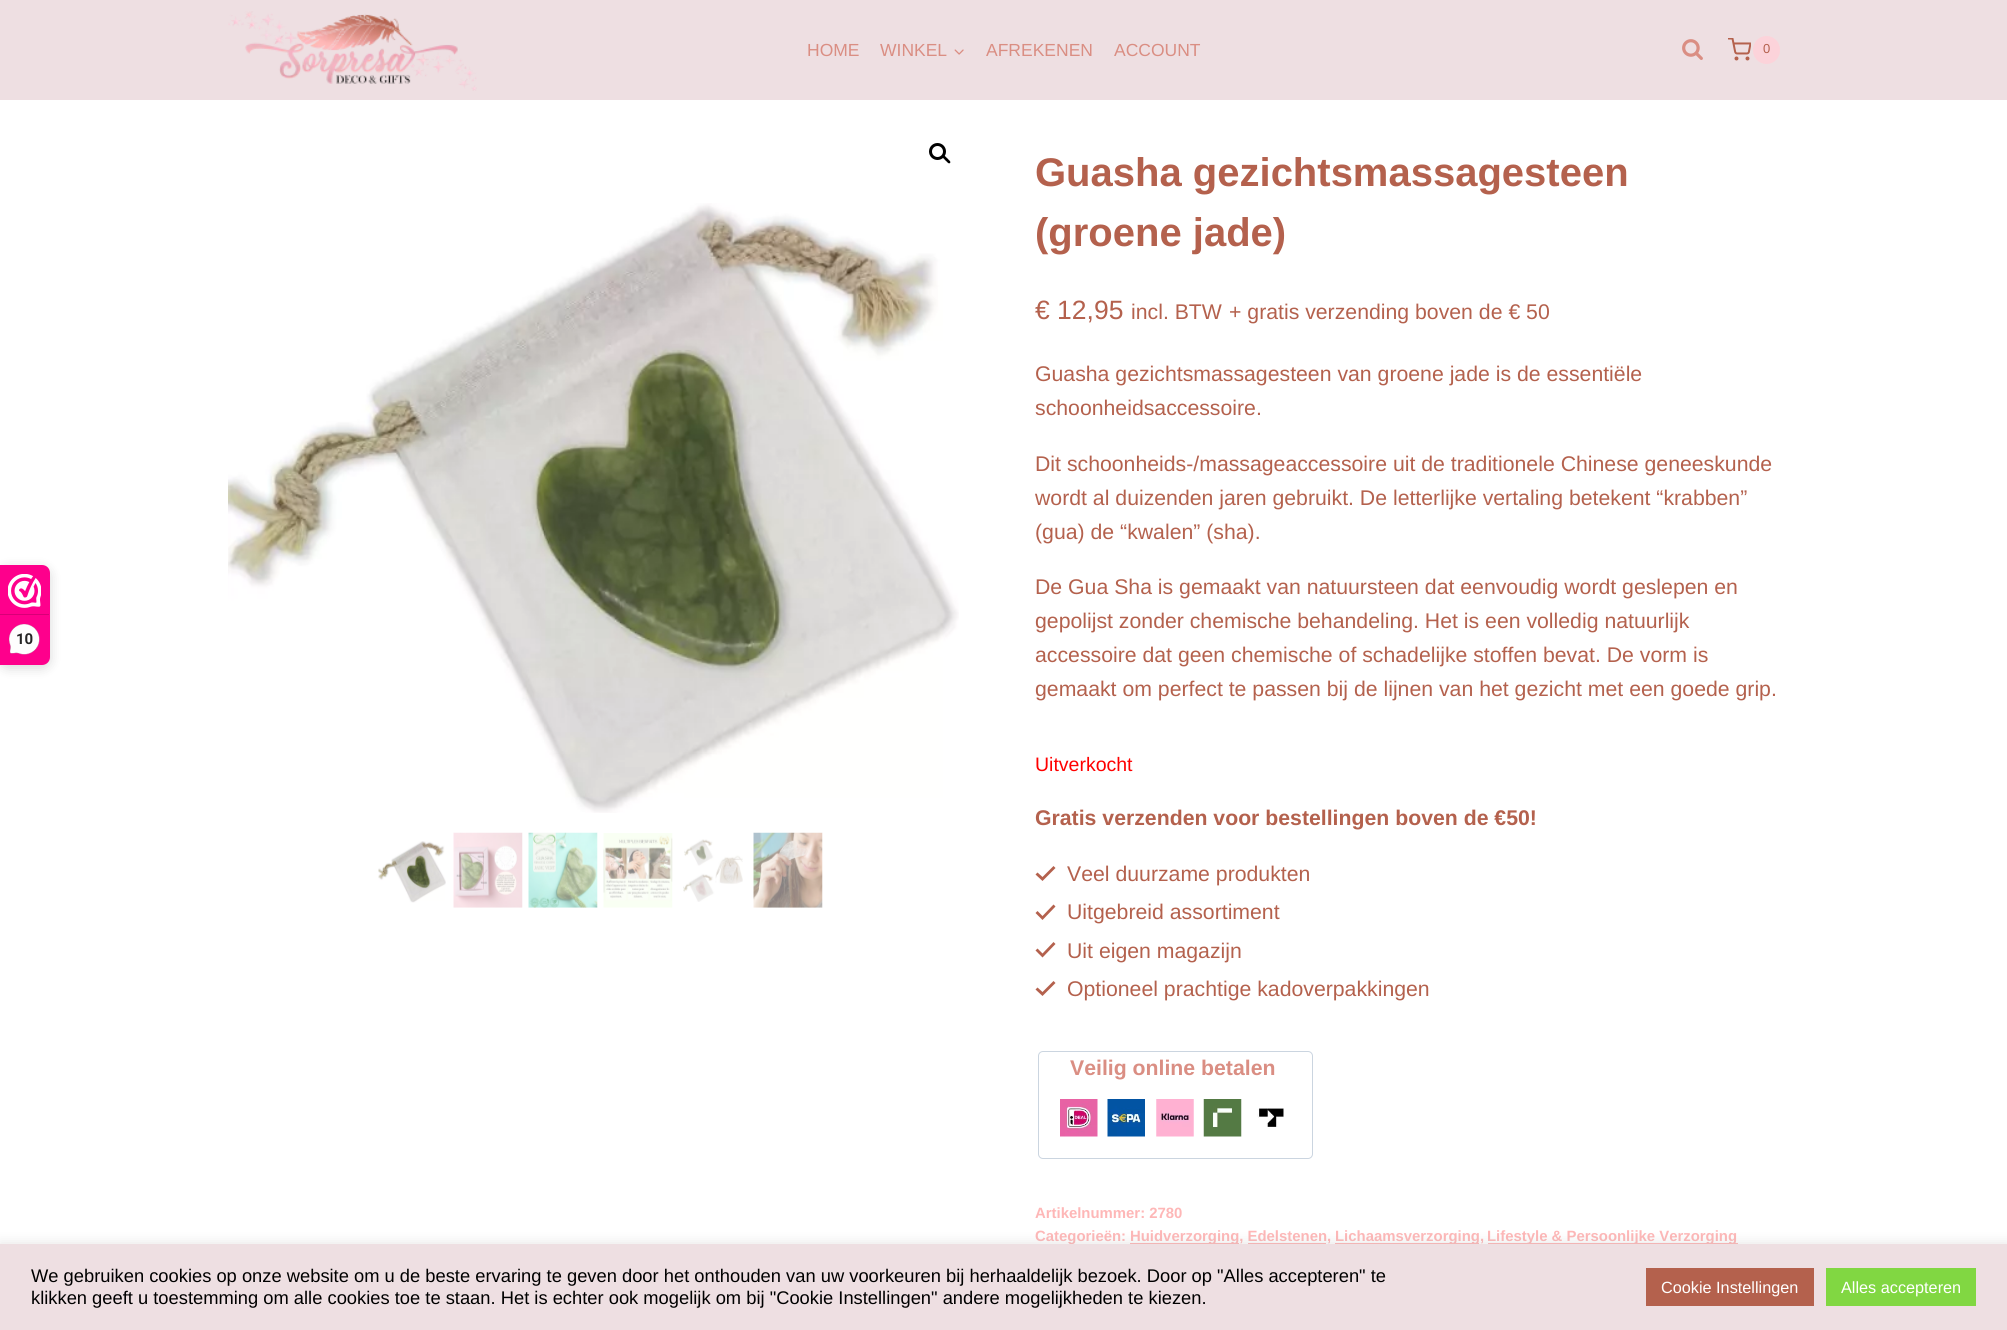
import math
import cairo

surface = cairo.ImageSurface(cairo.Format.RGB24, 2007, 1330)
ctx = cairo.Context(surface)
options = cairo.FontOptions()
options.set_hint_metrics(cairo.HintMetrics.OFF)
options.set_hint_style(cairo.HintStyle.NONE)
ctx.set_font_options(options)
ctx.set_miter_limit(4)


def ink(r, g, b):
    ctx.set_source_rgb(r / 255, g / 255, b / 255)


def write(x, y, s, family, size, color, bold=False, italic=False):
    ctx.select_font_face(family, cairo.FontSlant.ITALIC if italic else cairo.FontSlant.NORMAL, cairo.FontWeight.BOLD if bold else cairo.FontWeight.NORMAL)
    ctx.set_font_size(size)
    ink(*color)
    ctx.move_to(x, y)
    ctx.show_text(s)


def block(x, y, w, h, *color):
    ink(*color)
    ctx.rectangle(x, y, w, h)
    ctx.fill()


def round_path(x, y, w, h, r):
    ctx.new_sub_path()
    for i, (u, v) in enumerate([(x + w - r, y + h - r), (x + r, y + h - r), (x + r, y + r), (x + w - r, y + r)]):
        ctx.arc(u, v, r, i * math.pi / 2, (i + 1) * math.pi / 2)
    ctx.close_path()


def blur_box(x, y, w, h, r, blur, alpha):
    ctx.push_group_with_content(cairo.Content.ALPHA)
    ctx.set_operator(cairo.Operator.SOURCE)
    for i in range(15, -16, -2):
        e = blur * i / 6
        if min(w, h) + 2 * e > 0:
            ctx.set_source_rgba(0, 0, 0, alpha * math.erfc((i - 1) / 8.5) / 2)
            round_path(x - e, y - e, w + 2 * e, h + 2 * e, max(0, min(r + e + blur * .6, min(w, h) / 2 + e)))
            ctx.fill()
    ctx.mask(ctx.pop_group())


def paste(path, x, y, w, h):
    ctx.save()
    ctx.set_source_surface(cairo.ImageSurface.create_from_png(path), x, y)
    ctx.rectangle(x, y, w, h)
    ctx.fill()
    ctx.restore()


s1 = dict(family="Roboto", size=15, color=(39, 38, 38), bold=True)
s2 = dict(family="Liberation Sans", size=17.5, color=(218, 142, 131))
s3 = dict(family="Liberation Sans", size=13, color=(180, 97, 77))
s4 = dict(family="Liberation Sans", size=40, color=(180, 97, 77), bold=True)
s5 = dict(family="Liberation Sans", size=26.5, color=(180, 97, 77))
s6 = dict(family="Liberation Sans", size=21.25, color=(180, 97, 77))
s7 = dict(family="Liberation Sans", size=19.5, color=(255, 0, 0))
s8 = dict(family="Liberation Sans", size=21.25, color=(180, 97, 77), bold=True)
s9 = dict(family="Liberation Sans", size=21.25, color=(218, 142, 131), bold=True)
s10 = dict(family="Liberation Sans", size=14.9, color=(254, 183, 183), bold=True)
s11 = dict(family="Liberation Sans", size=18.33, color=(0, 0, 0))
s12 = dict(family="Liberation Sans", size=16.25, color=(255, 255, 255))

ink(255, 255, 255)
ctx.paint()
ink(0, 0, 0)
blur_box(0, 568, 50, 100, 8, 6, 0.15)
ink(254, 0, 140)
ctx.new_path()
ctx.move_to(0, 565)
ctx.line_to(42, 565)
ctx.curve_to(46.5, 565, 50, 568.5, 50, 573)
ctx.line_to(50, 657)
ctx.curve_to(50, 661.5, 46.5, 665, 42, 665)
ctx.line_to(0, 665)
ctx.close_path()
ctx.fill()
paste("pic1.png", 8, 574, 33, 34)
block(0, 614, 49, 1, 216, 0, 119)
paste("pic2.png", 9, 624, 31, 31)
write(16, 644, "10", **s1)
block(0, 0, 2007, 100, 238, 223, 226)
paste("pic3.png", 228, 11, 249, 80)
write(807, 56, "HOME", **s2)
write(880, 56, "WINKEL", **s2)
paste("pic4.png", 954, 49, 10, 6)
write(986, 56, "AFREKENEN", **s2)
write(1114, 56, "ACCOUNT", **s2)
paste("pic5.png", 1682, 39, 21, 21)
paste("pic6.png", 1728, 38, 23, 23)
ink(252, 211, 218)
round_path(1753, 36, 27, 28, 13.5)
ctx.fill()
write(1763, 53, "0", **s3)
ctx.new_path()
ctx.arc(937.5, 151.5, 7, 0, 2 * math.pi)
ink(0, 0, 0)
ctx.set_line_width(3)
ctx.stroke()
ctx.new_path()
ctx.move_to(943, 156)
ctx.curve_to(944.5, 154.5, 946.5, 158, 947.5, 158.5)
ctx.curve_to(948, 159.5, 951.5, 161.5, 950, 163)
ctx.curve_to(948.5, 164.5, 946.5, 161, 945.5, 160.5)
ctx.curve_to(945, 159.5, 941.5, 157.5, 943, 156)
ctx.close_path()
ctx.fill()
paste("pic7.png", 228, 203, 731, 610)
paste("pic8.png", 378, 841, 68, 62)
paste("pic9.png", 453, 832, 70, 76)
paste("pic10.png", 528, 832, 70, 76)
paste("pic11.png", 603, 833, 70, 75)
paste("pic12.png", 683, 839, 60, 63)
paste("pic13.png", 753, 832, 70, 76)
write(1035, 186, "Guasha gezichtsmassagesteen", **s4)
write(1035, 246, "(groene jade)", **s4)
write(1035, 319, "€ 12,95", **s5)
write(1131, 319, "incl. BTW", **s6)
write(1229, 319, "+ gratis verzending boven de € 50", **s6)
write(1035, 381, "Guasha gezichtsmassagesteen van groene jade is de essentiële", **s6)
write(1035, 415, "schoonheidsaccessoire.", **s6)
write(1035, 471, "Dit schoonheids-/massageaccessoire uit de traditionele Chinese geneeskunde", **s6)
write(1035, 505, "wordt al duizenden jaren gebruikt. De letterlijke vertaling betekent “krabben”", **s6)
write(1035, 539, "(gua) de “kwalen” (sha).", **s6)
write(1035, 594, "De Gua Sha is gemaakt van natuursteen dat eenvoudig wordt geslepen en", **s6)
write(1035, 628, "gepolijst zonder chemische behandeling. Het is een volledig natuurlijk", **s6)
write(1035, 662, "accessoire dat geen chemische of schadelijke stoffen bevat. De vorm is", **s6)
write(1035, 696, "gemaakt om perfect te passen bij de lijnen van het gezicht met een goede grip.", **s6)
write(1035, 771, "Uitverkocht", **s7)
write(1035, 825, "Gratis verzenden voor bestellingen boven de €50!", **s8)
ctx.new_path()
ctx.move_to(1053.5, 866)
ctx.line_to(1042.5, 877)
ctx.line_to(1037.5, 872.5)
ctx.line_to(1035.5, 874.5)
ctx.line_to(1042.5, 881)
ctx.line_to(1055.5, 868)
ctx.close_path()
ctx.move_to(1053.5, 904.5)
ctx.line_to(1042.5, 916)
ctx.line_to(1037.5, 911)
ctx.line_to(1035.5, 913)
ctx.line_to(1042.5, 920)
ctx.line_to(1055.5, 906.5)
ctx.close_path()
ctx.fill()
write(1067, 881, "Veel duurzame produkten", **s6)
write(1067, 919, "Uitgebreid assortiment", **s6)
ctx.new_path()
ctx.move_to(1053.5, 942)
ctx.line_to(1042.5, 953.5)
ctx.line_to(1037.5, 948.5)
ctx.line_to(1035.5, 950.5)
ctx.line_to(1042.5, 957.5)
ctx.line_to(1055.5, 944)
ctx.close_path()
ctx.move_to(1053.5, 981)
ctx.line_to(1042.5, 992)
ctx.line_to(1037.5, 987.5)
ctx.line_to(1035.5, 989.5)
ctx.line_to(1042.5, 996)
ctx.line_to(1055.5, 983)
ctx.close_path()
ctx.fill()
write(1067, 958, "Uit eigen magazijn", **s6)
write(1067, 996, "Optioneel prachtige kadoverpakkingen", **s6)
round_path(1038.5, 1051.5, 274, 107, 4.5)
ink(203, 213, 224)
ctx.set_line_width(1)
ctx.stroke()
write(1070, 1075, "Veilig online betalen", **s9)
paste("pic14.png", 1060, 1099, 38, 38)
paste("pic15.png", 1107, 1099, 38, 38)
paste("pic16.png", 1156, 1099, 38, 38)
paste("pic17.png", 1203, 1099, 39, 38)
paste("pic18.png", 1257, 1108, 27, 19)
write(1035, 1218, "Artikelnummer: 2780", **s10)
write(1035, 1241, "Categorieën:", **s10)
block(1130, 1243, 109, 1, 254, 183, 183)
write(1130, 1241, "Huidverzorging, Edelstenen,", **s10)
block(1335, 1243, 144, 1, 254, 183, 183)
write(1335, 1241, "Lichaamsverzorging,", **s10)
block(1488, 1243, 250, 1, 254, 183, 183)
write(1487, 1241, "Lifestyle & Persoonlijke Verzorging", **s10)
block(1248, 1243, 78, 1, 254, 183, 183)
ink(172, 171, 171)
blur_box(0, 1243, 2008, 86, 0, 6, 0.3)
block(0, 1244, 2007, 86, 238, 223, 226)
write(31, 1282, "We gebruiken cookies op onze website om u de beste ervaring te geven door het onthouden van uw voorkeuren bij herhaaldelijk bezoek. Door op \"Alles accepteren\" te", **s11)
write(31, 1304, "klikken geeft u toestemming om alle cookies toe te staan. Het is echter ook mogelijk om bij \"Cookie Instellingen\" andere mogelijkheden te kiezen.", **s11)
block(1646, 1268, 168, 38, 180, 97, 77)
write(1661, 1293, "Cookie Instellingen", **s12)
block(1826, 1268, 150, 38, 129, 215, 66)
write(1841, 1293, "Alles accepteren", **s12)
surface.write_to_png("screenshot.png")
